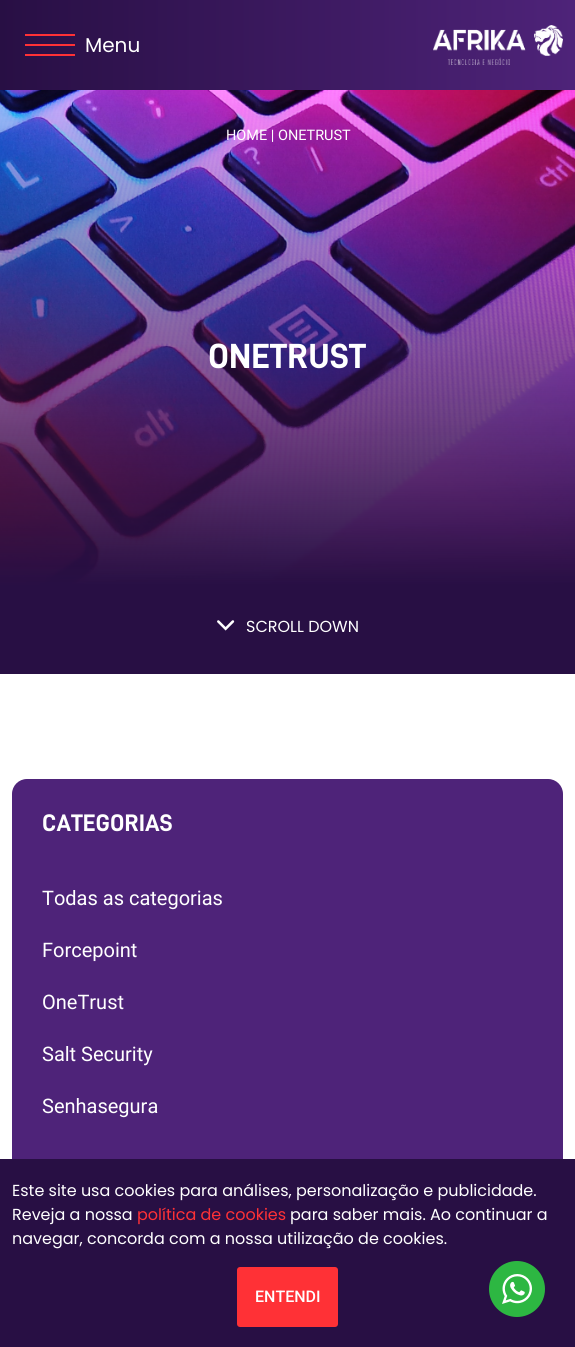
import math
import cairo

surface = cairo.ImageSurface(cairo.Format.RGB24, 575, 1347)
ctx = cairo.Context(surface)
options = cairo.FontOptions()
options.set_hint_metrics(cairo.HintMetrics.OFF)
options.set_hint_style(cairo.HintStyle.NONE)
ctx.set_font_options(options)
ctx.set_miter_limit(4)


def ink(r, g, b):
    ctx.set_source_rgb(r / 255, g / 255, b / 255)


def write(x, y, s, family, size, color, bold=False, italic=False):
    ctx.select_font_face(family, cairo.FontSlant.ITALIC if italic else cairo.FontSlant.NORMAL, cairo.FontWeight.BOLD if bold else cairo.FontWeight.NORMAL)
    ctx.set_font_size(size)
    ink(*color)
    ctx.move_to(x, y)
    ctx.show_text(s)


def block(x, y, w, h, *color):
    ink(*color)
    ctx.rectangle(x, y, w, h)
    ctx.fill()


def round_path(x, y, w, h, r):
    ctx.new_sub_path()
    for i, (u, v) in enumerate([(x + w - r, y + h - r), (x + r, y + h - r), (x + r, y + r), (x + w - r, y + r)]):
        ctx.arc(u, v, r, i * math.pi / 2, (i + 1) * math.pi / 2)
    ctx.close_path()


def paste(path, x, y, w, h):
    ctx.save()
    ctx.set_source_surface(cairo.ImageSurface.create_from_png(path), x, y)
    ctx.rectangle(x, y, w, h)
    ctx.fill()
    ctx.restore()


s1 = dict(family="Poppins", size=20, color=(255, 255, 255))
s2 = dict(family="Roboto", size=14.5, color=(255, 255, 255))
s3 = dict(family="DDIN", size=35, color=(255, 255, 255), bold=True)
s4 = dict(family="Poppins", size=16, color=(255, 255, 255))
s5 = dict(family="DDIN", size=24, color=(255, 255, 255), bold=True)
s6 = dict(family="Roboto", size=20, color=(255, 255, 255))
s7 = dict(family="Poppins", size=16, color=(255, 49, 54))
s8 = dict(family="Roboto Medium", size=16, color=(255, 255, 255))

ink(255, 255, 255)
ctx.paint()
gradient = cairo.LinearGradient(575, 45, 0, 45)
gradient.add_color_stop_rgba(0, 0.306, 0.137, 0.475, 1)
gradient.add_color_stop_rgba(1, 0.157, 0.059, 0.267, 1)
ctx.set_source(gradient)
ctx.rectangle(0, 0, 575, 90)
ctx.fill()
block(25, 34, 50, 2, 255, 49, 54)
block(25, 44, 50, 2, 255, 49, 54)
block(25, 54, 50, 2, 255, 49, 54)
write(85, 52, "Menu", **s1)
paste("pic1.png", 433, 25, 130, 40)
paste("pic2.png", 0, 90, 575, 495)
write(226, 140, "HOME | ONETRUST", **s2)
write(208, 368, "ONETRUST", **s3)
block(0, 585, 575, 89, 40, 15, 68)
paste("pic3.png", 217, 620, 18, 11)
write(246, 632, "SCROLL DOWN", **s4)
ink(78, 35, 121)
round_path(12, 779, 551, 488, 15)
ctx.fill()
write(42, 831, "CATEGORIAS", **s5)
write(42, 905, "Todas as categorias", **s6)
write(42, 957, "Forcepoint", **s6)
write(42, 1009, "OneTrust", **s6)
write(42, 1061, "Salt Security", **s6)
write(42, 1113, "Senhasegura", **s6)
block(0, 1159, 575, 188, 40, 15, 68)
write(12, 1196, "Este site usa cookies para análises, personalização e publicidade.", **s4)
write(12, 1220, "Reveja a nossa", **s4)
write(137, 1220, "política de cookies", **s7)
write(290, 1220, "para saber mais. Ao continuar a", **s4)
write(12, 1244, "navegar, concorda com a nossa utilização de cookies.", **s4)
ink(255, 49, 54)
round_path(237, 1267, 101, 60, 3)
ctx.fill()
write(255, 1302, "ENTENDI", **s8)
ink(45, 183, 66)
ctx.new_path()
ctx.arc(517, 1289, 28, 0, 2 * math.pi)
ctx.fill()
paste("pic4.png", 502, 1274, 30, 30)
surface.write_to_png("screenshot.png")
